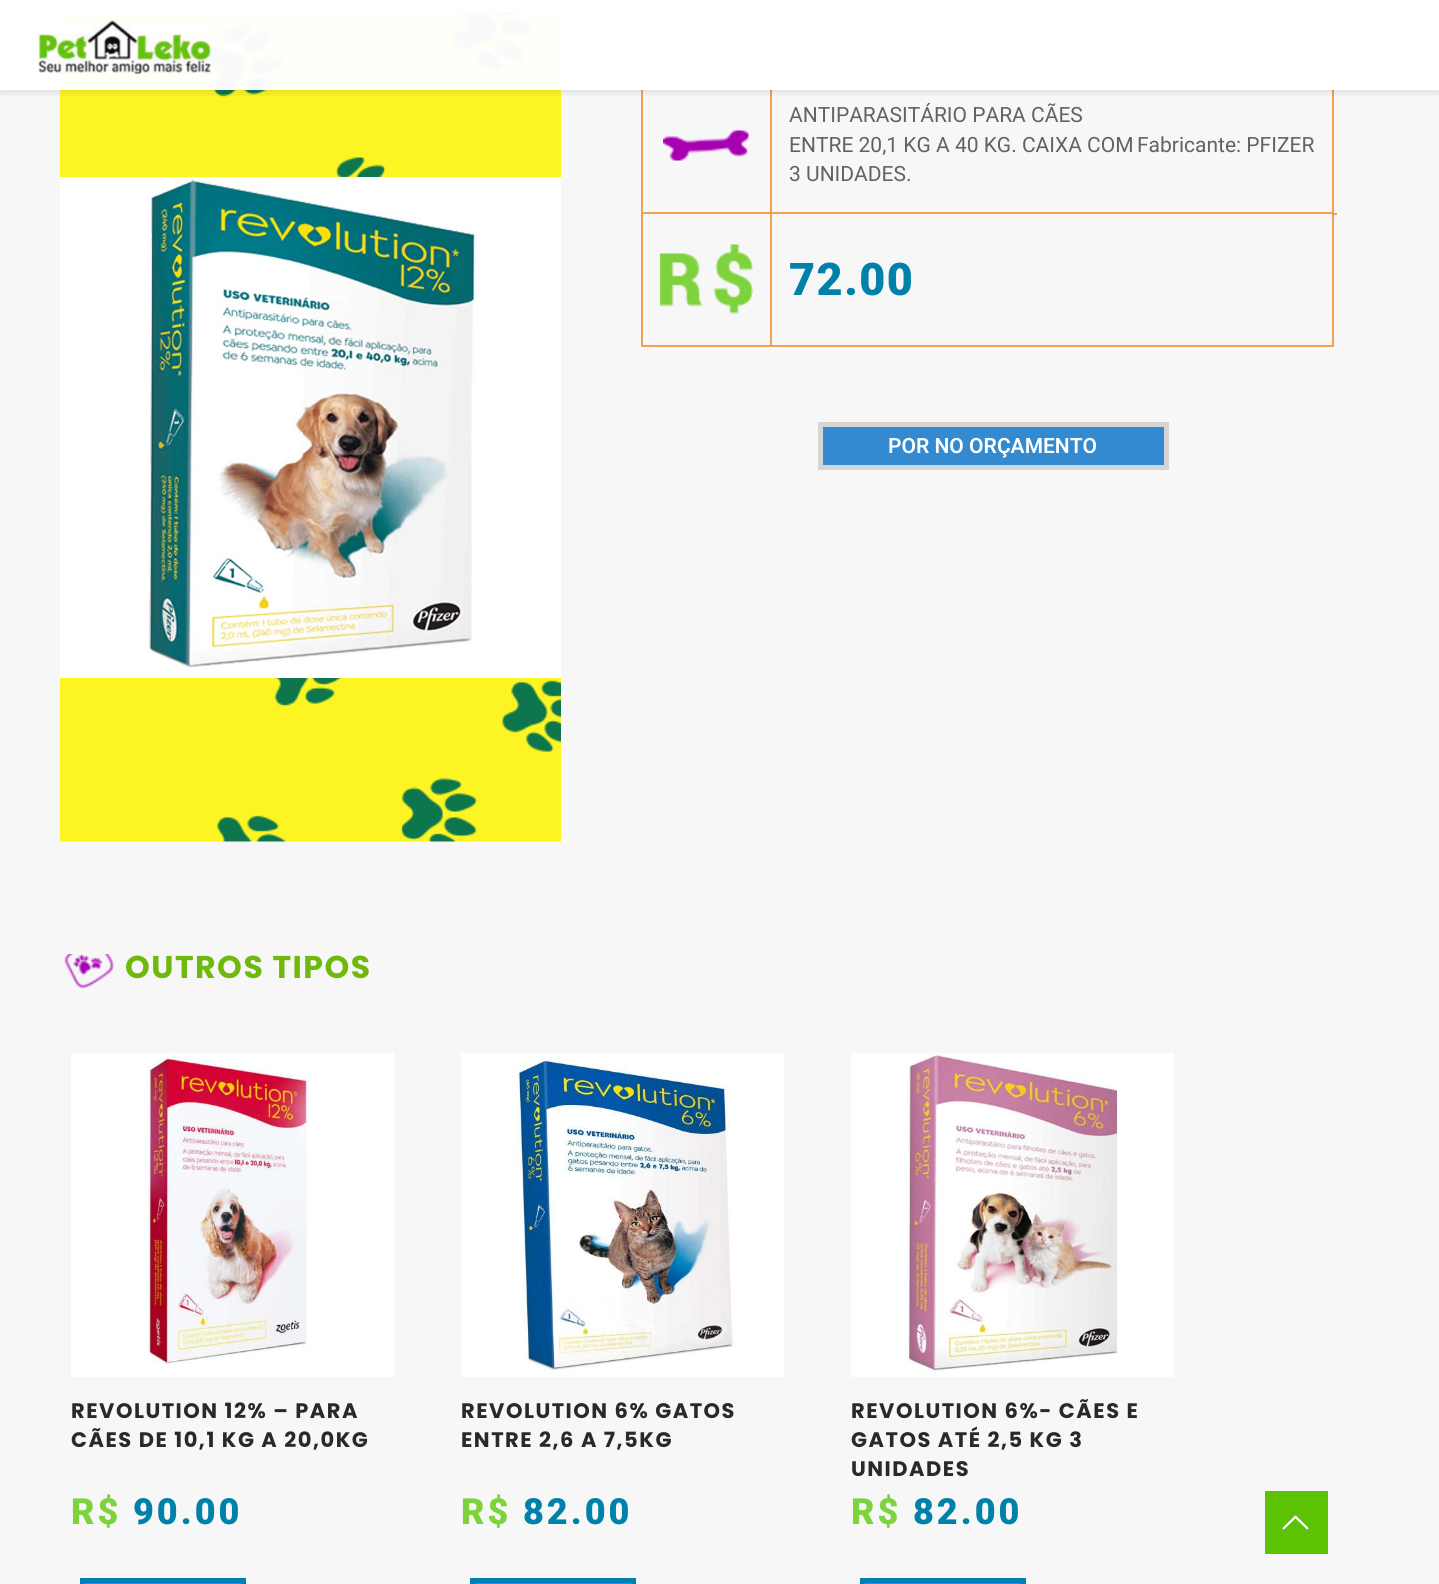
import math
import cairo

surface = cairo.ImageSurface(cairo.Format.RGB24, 1439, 1584)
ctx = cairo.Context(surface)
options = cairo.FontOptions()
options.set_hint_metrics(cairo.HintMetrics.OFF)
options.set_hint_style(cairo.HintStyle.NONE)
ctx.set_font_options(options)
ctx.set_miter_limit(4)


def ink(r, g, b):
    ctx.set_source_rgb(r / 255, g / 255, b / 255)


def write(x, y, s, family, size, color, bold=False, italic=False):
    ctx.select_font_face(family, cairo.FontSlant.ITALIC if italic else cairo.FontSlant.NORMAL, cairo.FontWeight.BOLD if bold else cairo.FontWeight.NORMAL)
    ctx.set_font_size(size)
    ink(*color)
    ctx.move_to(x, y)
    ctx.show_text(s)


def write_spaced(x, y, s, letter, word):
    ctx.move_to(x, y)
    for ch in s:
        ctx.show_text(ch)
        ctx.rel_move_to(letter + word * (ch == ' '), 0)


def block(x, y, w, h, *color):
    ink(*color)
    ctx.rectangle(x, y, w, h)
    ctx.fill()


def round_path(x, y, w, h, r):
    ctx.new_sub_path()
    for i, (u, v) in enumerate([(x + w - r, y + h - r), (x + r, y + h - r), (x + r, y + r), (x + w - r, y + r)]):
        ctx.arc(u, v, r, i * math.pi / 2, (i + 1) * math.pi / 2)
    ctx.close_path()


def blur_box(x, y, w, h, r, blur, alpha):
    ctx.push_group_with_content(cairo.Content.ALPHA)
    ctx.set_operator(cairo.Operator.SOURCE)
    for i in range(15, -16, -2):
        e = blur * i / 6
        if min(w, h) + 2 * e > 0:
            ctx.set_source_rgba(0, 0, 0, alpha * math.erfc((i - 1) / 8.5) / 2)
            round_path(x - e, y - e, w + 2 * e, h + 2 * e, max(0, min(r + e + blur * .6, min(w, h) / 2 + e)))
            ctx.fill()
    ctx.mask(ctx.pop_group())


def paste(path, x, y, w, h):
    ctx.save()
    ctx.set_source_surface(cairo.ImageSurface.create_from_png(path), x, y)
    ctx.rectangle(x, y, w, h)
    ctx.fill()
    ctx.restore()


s1 = dict(family="Roboto", size=21, color=(98, 98, 98))
s2 = dict(family="Roboto SemiBold", size=21, color=(255, 255, 255))

ink(247, 247, 247)
ctx.paint()
paste("pic2.png", 60, 12, 501, 830)
block(1332, 80, 2, 133, 239, 162, 81)
block(641, 212, 693, 2, 239, 162, 81)
block(641, 80, 2, 133, 239, 162, 81)
block(770, 80, 2, 132, 239, 162, 81)
ctx.save()
ctx.rectangle(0, 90, 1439, 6)
ctx.clip()
ink(0, 0, 0)
blur_box(0, 3, 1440, 90, 0, 4, 0.1)
ctx.restore()
ctx.set_source_rgba(1, 1, 1, 0.97)
ctx.rectangle(0, 0, 1439, 90)
ctx.fill()
paste("pic1.png", 37, 20, 174, 54)
paste("pic3.png", 60, 177, 501, 501)
paste("pic4.png", 663, 130, 86, 31)
write(789, 122, "ANTIPARASITÁRIO PARA CÃES", **s1)
write(789, 152, "ENTRE 20,1 KG A 40 KG. CAIXA COM", **s1)
write(789, 181, "3 UNIDADES.", **s1)
write(1137, 152, "Fabricante: PFIZER", **s1)
block(1334, 213, 3, 2, 239, 162, 81)
block(1332, 213, 2, 134, 239, 162, 81)
block(641, 345, 693, 2, 239, 162, 81)
block(641, 213, 2, 134, 239, 162, 81)
paste("pic5.png", 660, 244, 93, 70)
block(770, 213, 2, 132, 239, 162, 81)
ctx.select_font_face("Roboto Black")
ctx.set_font_size(45)
ink(0, 129, 170)
write_spaced(789, 295, "72.00", 1.5, 0)
ink(51, 138, 209)
ctx.rectangle(820.5, 424.5, 346, 43)
ctx.fill_preserve()
ink(213, 213, 212)
ctx.set_line_width(5)
ctx.stroke()
write(888, 453, "POR NO ORÇAMENTO", **s2)
paste("pic6.png", 64, 954, 50, 35)
ctx.select_font_face("Poppins", cairo.FontSlant.NORMAL, cairo.FontWeight.BOLD)
ctx.set_font_size(31.5)
ink(110, 185, 11)
write_spaced(125, 978, "OUTROS TIPOS", 1.5, 0)
paste("pic7.png", 71, 1053, 323, 324)
ctx.set_font_size(21)
ink(42, 41, 41)
write_spaced(71, 1418, "REVOLUTION 12% – PARA", 1.5, 0)
write_spaced(71, 1447, "CÃES DE 10,1 KG A 20,0KG", 1.5, 0)
ctx.select_font_face("Roboto Black")
ctx.set_font_size(36)
ink(126, 210, 61)
write_spaced(71, 1524, "R$", 3, 0)
ink(0, 129, 170)
write_spaced(133, 1524, "90.00", 3, 0)
ink(52, 145, 215)
ctx.rectangle(82.5, 1580.5, 161, 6)
ctx.fill_preserve()
ink(0, 127, 182)
ctx.stroke()
paste("pic8.png", 461, 1053, 323, 324)
ctx.select_font_face("Poppins", cairo.FontSlant.NORMAL, cairo.FontWeight.BOLD)
ctx.set_font_size(21)
ink(42, 41, 41)
write_spaced(461, 1418, "REVOLUTION 6% GATOS", 1.5, 0)
write_spaced(461, 1447, "ENTRE 2,6 A 7,5KG", 1.5, 0)
ctx.select_font_face("Roboto Black")
ctx.set_font_size(36)
ink(126, 210, 61)
write_spaced(461, 1524, "R$", 3, 0)
ink(0, 129, 170)
write_spaced(523, 1524, "82.00", 3, 0)
ink(52, 145, 215)
ctx.rectangle(472.5, 1580.5, 161, 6)
ctx.fill_preserve()
ink(0, 127, 182)
ctx.stroke()
paste("pic9.png", 851, 1053, 323, 324)
ctx.select_font_face("Poppins", cairo.FontSlant.NORMAL, cairo.FontWeight.BOLD)
ctx.set_font_size(21)
ink(42, 41, 41)
write_spaced(851, 1418, "REVOLUTION 6%- CÃES E", 1.5, 0)
write_spaced(851, 1447, "GATOS ATÉ 2,5 KG 3", 1.5, 0)
write_spaced(851, 1476, "UNIDADES", 1.5, 0)
ctx.select_font_face("Roboto Black")
ctx.set_font_size(36)
ink(126, 210, 61)
write_spaced(851, 1524, "R$", 3, 0)
ink(0, 129, 170)
write_spaced(913, 1524, "82.00", 3, 0)
ink(52, 145, 215)
ctx.rectangle(862.5, 1580.5, 161, 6)
ctx.fill_preserve()
ink(0, 127, 182)
ctx.stroke()
block(1265, 1491, 63, 63, 94, 194, 4)
paste("pic10.png", 1282, 1515, 27, 15)
surface.write_to_png("screenshot.png")
